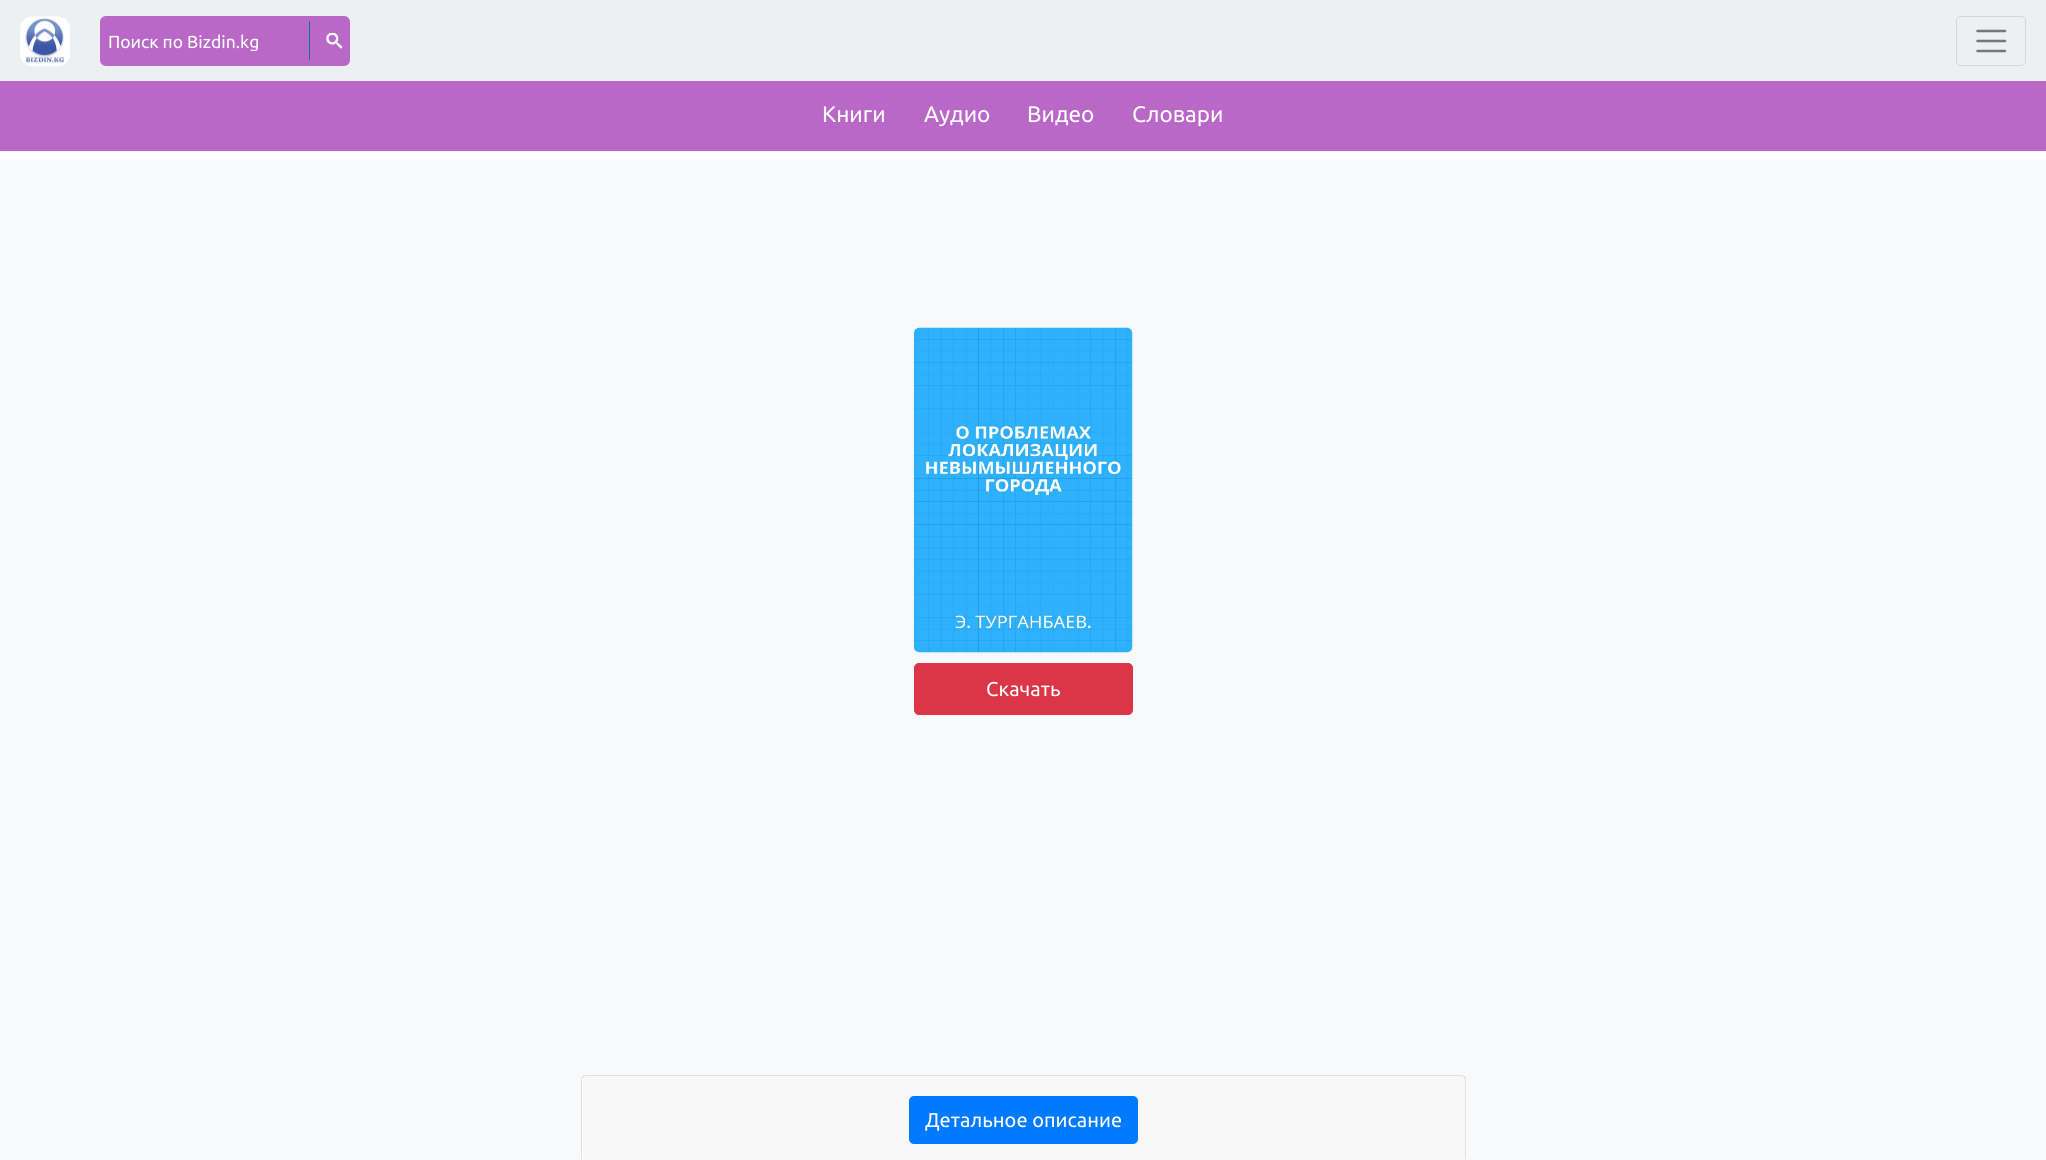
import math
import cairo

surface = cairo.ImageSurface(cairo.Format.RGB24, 2046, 1160)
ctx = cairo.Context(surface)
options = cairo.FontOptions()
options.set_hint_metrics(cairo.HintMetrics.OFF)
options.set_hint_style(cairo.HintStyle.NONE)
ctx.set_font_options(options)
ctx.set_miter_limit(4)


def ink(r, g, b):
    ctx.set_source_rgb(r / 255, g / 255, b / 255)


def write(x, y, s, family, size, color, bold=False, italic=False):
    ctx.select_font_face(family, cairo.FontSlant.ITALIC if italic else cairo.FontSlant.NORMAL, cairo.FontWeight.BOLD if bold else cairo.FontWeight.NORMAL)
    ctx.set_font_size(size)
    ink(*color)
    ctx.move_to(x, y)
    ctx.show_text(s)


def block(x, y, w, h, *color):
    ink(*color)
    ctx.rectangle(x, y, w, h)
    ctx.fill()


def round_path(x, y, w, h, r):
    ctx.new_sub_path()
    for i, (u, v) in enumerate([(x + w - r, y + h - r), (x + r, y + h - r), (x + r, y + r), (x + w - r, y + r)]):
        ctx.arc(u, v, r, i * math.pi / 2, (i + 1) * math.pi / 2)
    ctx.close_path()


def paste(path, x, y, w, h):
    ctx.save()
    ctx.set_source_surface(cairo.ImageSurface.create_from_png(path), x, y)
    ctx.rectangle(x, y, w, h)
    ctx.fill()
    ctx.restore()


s1 = dict(family="Ubuntu", size=17.5, color=(255, 255, 255))
s2 = dict(family="Ubuntu", size=22.5, color=(255, 255, 255))
s3 = dict(family="Ubuntu", size=20, color=(255, 255, 255))

ink(255, 255, 255)
ctx.paint()
block(0, 0, 2046, 81, 236, 240, 241)
paste("pic1.png", 20, 16, 50, 51)
ink(186, 104, 200)
round_path(100, 16, 250, 50, 6)
ctx.fill()
ctx.save()
ctx.rectangle(108, 31, 196, 20)
ctx.clip()
write(108, 48, "Поиск по Bizdin.kg", **s1)
ctx.restore()
block(309, 21, 1, 39, 1, 115, 175)
paste("pic2.png", 326, 33, 17, 16)
round_path(1956.5, 16.5, 69, 49, 4.5)
ink(212, 216, 217)
ctx.set_line_width(1)
ctx.stroke()
ctx.new_path()
ctx.move_to(1977.5, 31)
ctx.line_to(2005, 31)
ctx.move_to(1977.5, 41)
ctx.line_to(2005, 41)
ctx.move_to(1977.5, 51)
ctx.line_to(2005, 51)
ink(118, 120, 121)
ctx.set_line_width(2.5)
ctx.set_line_cap(cairo.LineCap.ROUND)
ctx.stroke()
block(0, 81, 2046, 70, 186, 104, 200)
write(822, 122, "Книги", **s2)
write(924, 122, "Аудио", **s2)
write(1027, 122, "Видео", **s2)
write(1132, 122, "Словари", **s2)
block(0, 160, 2046, 1000, 248, 249, 250)
paste("pic3.png", 913, 327, 220, 326)
ink(220, 53, 69)
round_path(914.5, 663.5, 218, 51, 4.5)
ctx.fill_preserve()
ctx.set_line_width(1)
ctx.set_line_cap(cairo.LineCap.BUTT)
ctx.stroke()
write(986, 696, "Скачать", **s3)
ctx.new_path()
ctx.move_to(586, 1075)
ctx.line_to(1461, 1075)
ctx.curve_to(1464, 1075, 1466, 1077, 1466, 1080)
ctx.line_to(1466, 1159)
ctx.line_to(581, 1159)
ctx.line_to(581, 1080)
ctx.curve_to(581, 1077, 583, 1075, 586, 1075)
ctx.close_path()
ctx.fill()
ctx.set_source_rgba(0, 0, 0, 0.12)
ctx.set_fill_rule(cairo.FillRule.EVEN_ODD)
ctx.new_path()
ctx.move_to(586, 1075)
ctx.line_to(1461, 1075)
ctx.curve_to(1464, 1075, 1466, 1077, 1466, 1080)
ctx.line_to(1466, 1159)
ctx.line_to(581, 1159)
ctx.line_to(581, 1080)
ctx.curve_to(581, 1077, 583, 1075, 586, 1075)
ctx.close_path()
ctx.move_to(586, 1076)
ctx.line_to(1461, 1076)
ctx.curve_to(1463, 1076, 1465, 1078, 1465, 1080)
ctx.line_to(1465, 1159)
ctx.line_to(582, 1159)
ctx.line_to(582, 1080)
ctx.curve_to(582, 1078, 584, 1076, 586, 1076)
ctx.close_path()
ctx.fill()
ctx.set_source_rgba(0, 0, 0, 0.03)
ctx.rectangle(583, 1076, 882, 83)
ctx.fill()
ink(0, 123, 255)
round_path(909.5, 1096.5, 228, 47, 4.5)
ctx.fill_preserve()
ctx.stroke()
write(925, 1127, "Детальное описание", **s3)
surface.write_to_png("screenshot.png")
